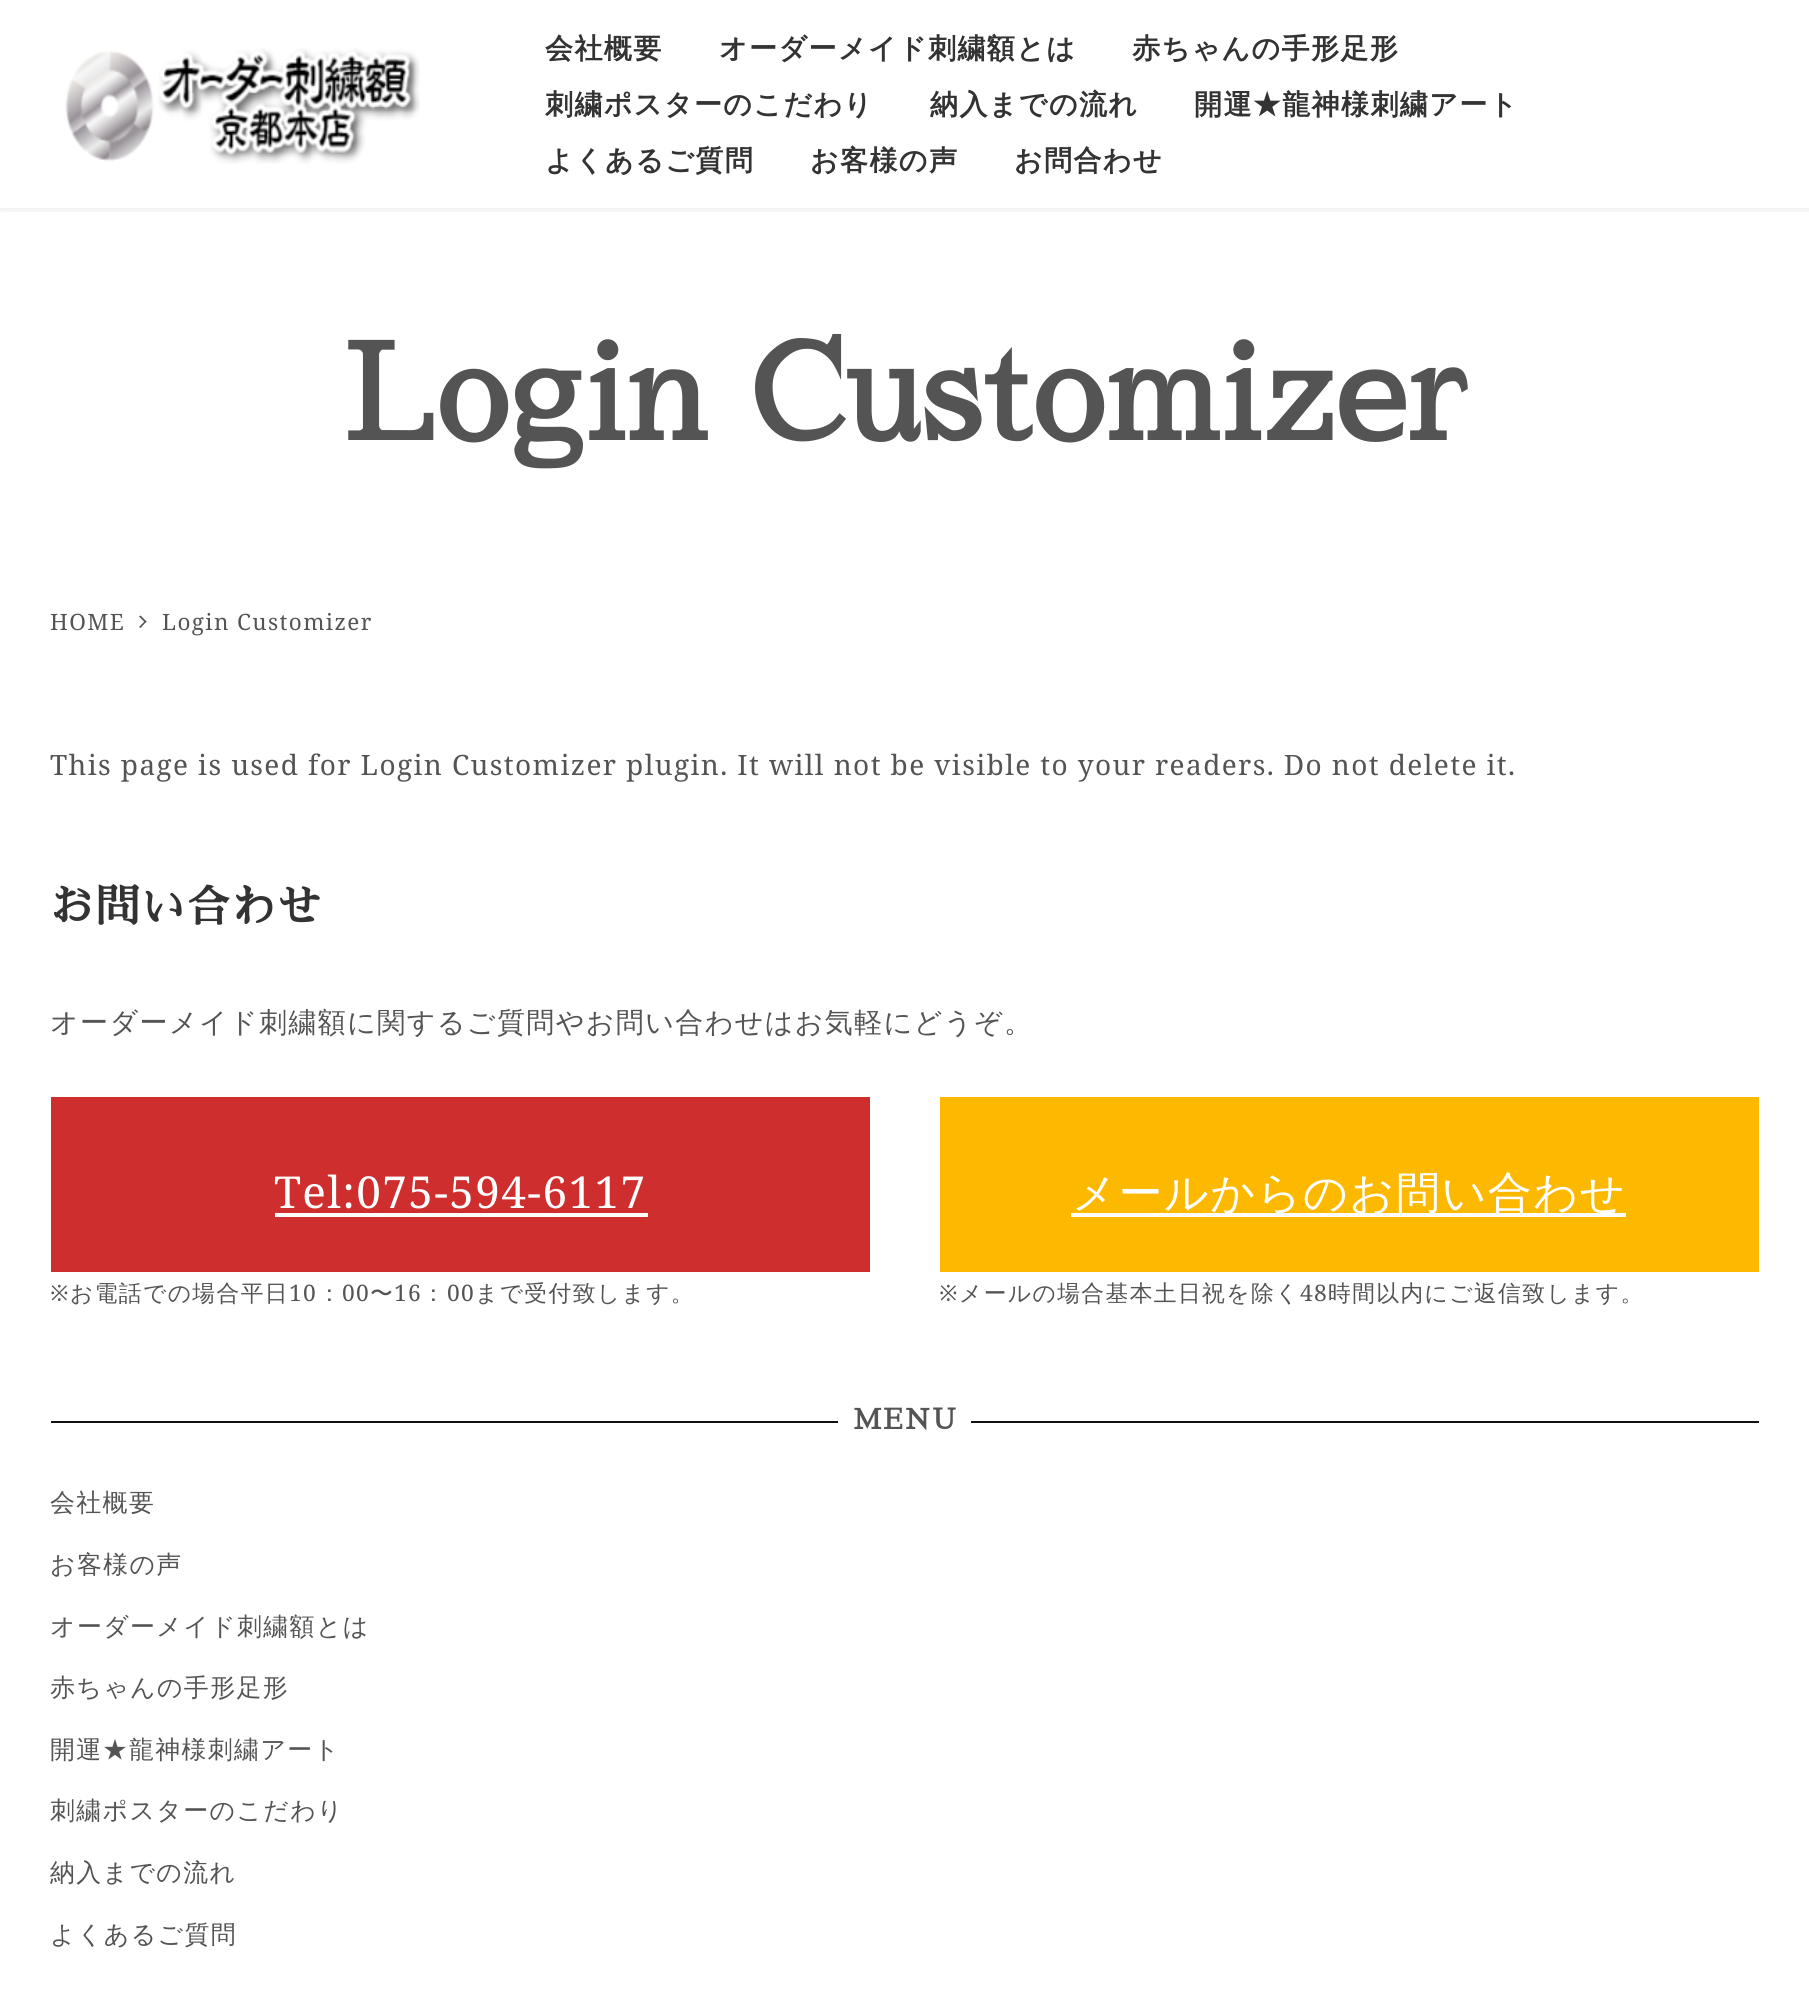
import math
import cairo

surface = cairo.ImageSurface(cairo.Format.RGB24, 1809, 1993)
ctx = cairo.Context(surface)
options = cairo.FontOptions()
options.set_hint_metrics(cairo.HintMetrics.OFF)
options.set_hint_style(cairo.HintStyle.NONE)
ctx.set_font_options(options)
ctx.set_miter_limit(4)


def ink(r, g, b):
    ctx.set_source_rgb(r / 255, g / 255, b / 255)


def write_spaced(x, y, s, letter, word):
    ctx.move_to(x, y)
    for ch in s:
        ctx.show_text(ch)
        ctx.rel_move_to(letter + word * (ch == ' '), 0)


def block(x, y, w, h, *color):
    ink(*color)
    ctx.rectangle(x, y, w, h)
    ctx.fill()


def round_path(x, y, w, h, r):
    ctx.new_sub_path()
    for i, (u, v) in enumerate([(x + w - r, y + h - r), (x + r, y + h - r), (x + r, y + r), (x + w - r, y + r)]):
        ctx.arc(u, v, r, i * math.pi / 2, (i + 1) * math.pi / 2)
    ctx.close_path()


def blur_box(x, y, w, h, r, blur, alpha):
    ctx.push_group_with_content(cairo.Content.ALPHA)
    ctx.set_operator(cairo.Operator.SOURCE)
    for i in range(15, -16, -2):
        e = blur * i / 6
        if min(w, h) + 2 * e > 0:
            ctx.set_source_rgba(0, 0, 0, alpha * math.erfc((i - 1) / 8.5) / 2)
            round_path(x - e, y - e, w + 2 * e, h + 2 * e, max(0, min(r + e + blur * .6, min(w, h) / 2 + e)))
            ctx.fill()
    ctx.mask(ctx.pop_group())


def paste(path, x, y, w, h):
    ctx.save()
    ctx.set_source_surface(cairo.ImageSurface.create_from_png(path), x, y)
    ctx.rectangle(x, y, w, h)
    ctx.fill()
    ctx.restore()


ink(255, 255, 255)
ctx.paint()
ctx.save()
ctx.rectangle(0, 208, 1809, 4)
ctx.clip()
ink(0, 0, 0)
blur_box(-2, 0, 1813, 212, 0, 2, 0.05)
ctx.restore()
paste("pic1.png", 65, 48, 355, 116)
ctx.select_font_face("WenQuanYi Zen Hei", cairo.FontSlant.NORMAL, cairo.FontWeight.BOLD)
ctx.set_font_size(28)
ink(51, 51, 51)
write_spaced(545, 58, "会社概要", 1.4, 0)
write_spaced(719, 58, "オーダーメイド刺繍額とは", 1.4, 0)
write_spaced(1132, 58, "赤ちゃんの手形足形", 1.4, 0)
write_spaced(545, 114, "刺繍ポスターのこだわり", 1.4, 0)
write_spaced(930, 114, "納入までの流れ", 1.4, 0)
write_spaced(1194, 114, "開運★龍神様刺繍アート", 1.4, 0)
write_spaced(545, 170, "よくあるご質問", 1.4, 0)
write_spaced(810, 170, "お客様の声", 1.4, 0)
write_spaced(1014, 170, "お問合わせ", 1.4, 0)
ctx.select_font_face("Sawarabi Mincho", cairo.FontSlant.NORMAL, cairo.FontWeight.BOLD)
ctx.set_font_size(131.25)
ink(84, 84, 84)
write_spaced(343, 440, "Login Customizer", 1.4, 0)
ctx.select_font_face("Noto Serif")
ctx.set_font_size(22.5)
write_spaced(50, 630, "HOME", 1.4, 0)
ctx.new_path()
ctx.move_to(140.5, 615.5)
ctx.line_to(146.5, 621.5)
ctx.line_to(145.5, 623)
ctx.line_to(139, 616.5)
ctx.close_path()
ctx.fill()
ctx.new_path()
ctx.move_to(145.5, 620.5)
ctx.line_to(146.5, 621.5)
ctx.line_to(140.5, 628)
ctx.line_to(139, 627)
ctx.close_path()
ctx.fill()
write_spaced(162, 630, "Login Customizer", 1.4, 0)
ctx.set_font_size(28)
write_spaced(50, 775, "This page is used for Login Customizer plugin. It will not be visible to your readers. Do not delete it.", 1.4, 0)
ctx.select_font_face("Sawarabi Mincho", cairo.FontSlant.NORMAL, cairo.FontWeight.BOLD)
ctx.set_font_size(44)
ink(51, 51, 51)
write_spaced(50, 922, "お問い合わせ", 1.4, 0)
ctx.select_font_face("WenQuanYi Zen Hei Medium")
ctx.set_font_size(28)
ink(84, 84, 84)
write_spaced(50, 1032, "オーダーメイド刺繍額に関するご質問やお問い合わせはお気軽にどうぞ。", 1.4, 0)
block(51, 1097, 819, 175, 207, 46, 46)
ctx.select_font_face("Noto Serif")
ctx.set_font_size(44)
ink(255, 255, 255)
write_spaced(274, 1208, "Tel:075-594-6117", 1.4, 0)
block(275, 1213, 373, 4, 255, 255, 255)
ctx.set_font_size(22.75)
ink(84, 84, 84)
write_spaced(50, 1301, "※", 1.4, 0)
ctx.select_font_face("WenQuanYi Zen Hei Medium")
write_spaced(70, 1301, "お電話での場合平日", 1.4, 0)
ctx.select_font_face("Noto Serif")
write_spaced(289, 1301, "10", 1.4, 0)
ctx.select_font_face("WenQuanYi Zen Hei Medium")
write_spaced(318, 1301, "：", 1.4, 0)
ctx.select_font_face("Noto Serif")
write_spaced(342, 1301, "00", 1.4, 0)
ctx.select_font_face("WenQuanYi Zen Hei Medium")
write_spaced(370, 1301, "〜", 1.4, 0)
ctx.select_font_face("Noto Serif")
write_spaced(394, 1301, "16", 1.4, 0)
ctx.select_font_face("WenQuanYi Zen Hei Medium")
write_spaced(422, 1301, "：", 1.4, 0)
ctx.select_font_face("Noto Serif")
write_spaced(447, 1301, "00", 1.4, 0)
ctx.select_font_face("WenQuanYi Zen Hei Medium")
write_spaced(475, 1301, "まで受付致します。", 1.4, 0)
block(940, 1097, 819, 175, 252, 185, 0)
block(1071, 1213, 555, 4, 255, 255, 255)
ctx.set_font_size(44)
write_spaced(1072, 1208, "メールからのお問い合わせ", 1.4, 0)
ctx.select_font_face("Noto Serif")
ctx.set_font_size(22.75)
ink(84, 84, 84)
write_spaced(939, 1301, "※", 1.4, 0)
ctx.select_font_face("WenQuanYi Zen Hei Medium")
write_spaced(959, 1301, "メールの場合基本土日祝を除く", 1.4, 0)
ctx.select_font_face("Noto Serif")
write_spaced(1300, 1301, "48", 1.4, 0)
ctx.select_font_face("WenQuanYi Zen Hei Medium")
write_spaced(1328, 1301, "時間以内にご返信致します。", 1.4, 0)
block(51, 1421, 787, 2, 17, 17, 17)
ctx.select_font_face("Sawarabi Mincho", cairo.FontSlant.NORMAL, cairo.FontWeight.BOLD)
ctx.set_font_size(28)
ink(84, 84, 84)
write_spaced(853, 1429, "MENU", 1.4, 0)
block(971, 1421, 788, 2, 17, 17, 17)
ctx.select_font_face("WenQuanYi Zen Hei Medium")
ctx.set_font_size(24.9)
ink(84, 84, 84)
write_spaced(50, 1511, "会社概要", 1.4, 0)
write_spaced(50, 1573, "お客様の声", 1.4, 0)
write_spaced(50, 1635, "オーダーメイド刺繍額とは", 1.4, 0)
write_spaced(50, 1696, "赤ちゃんの手形足形", 1.4, 0)
write_spaced(50, 1758, "開運★龍神様刺繍アート", 1.4, 0)
write_spaced(50, 1819, "刺繍ポスターのこだわり", 1.4, 0)
write_spaced(50, 1881, "納入までの流れ", 1.4, 0)
write_spaced(50, 1943, "よくあるご質問", 1.4, 0)
surface.write_to_png("screenshot.png")
